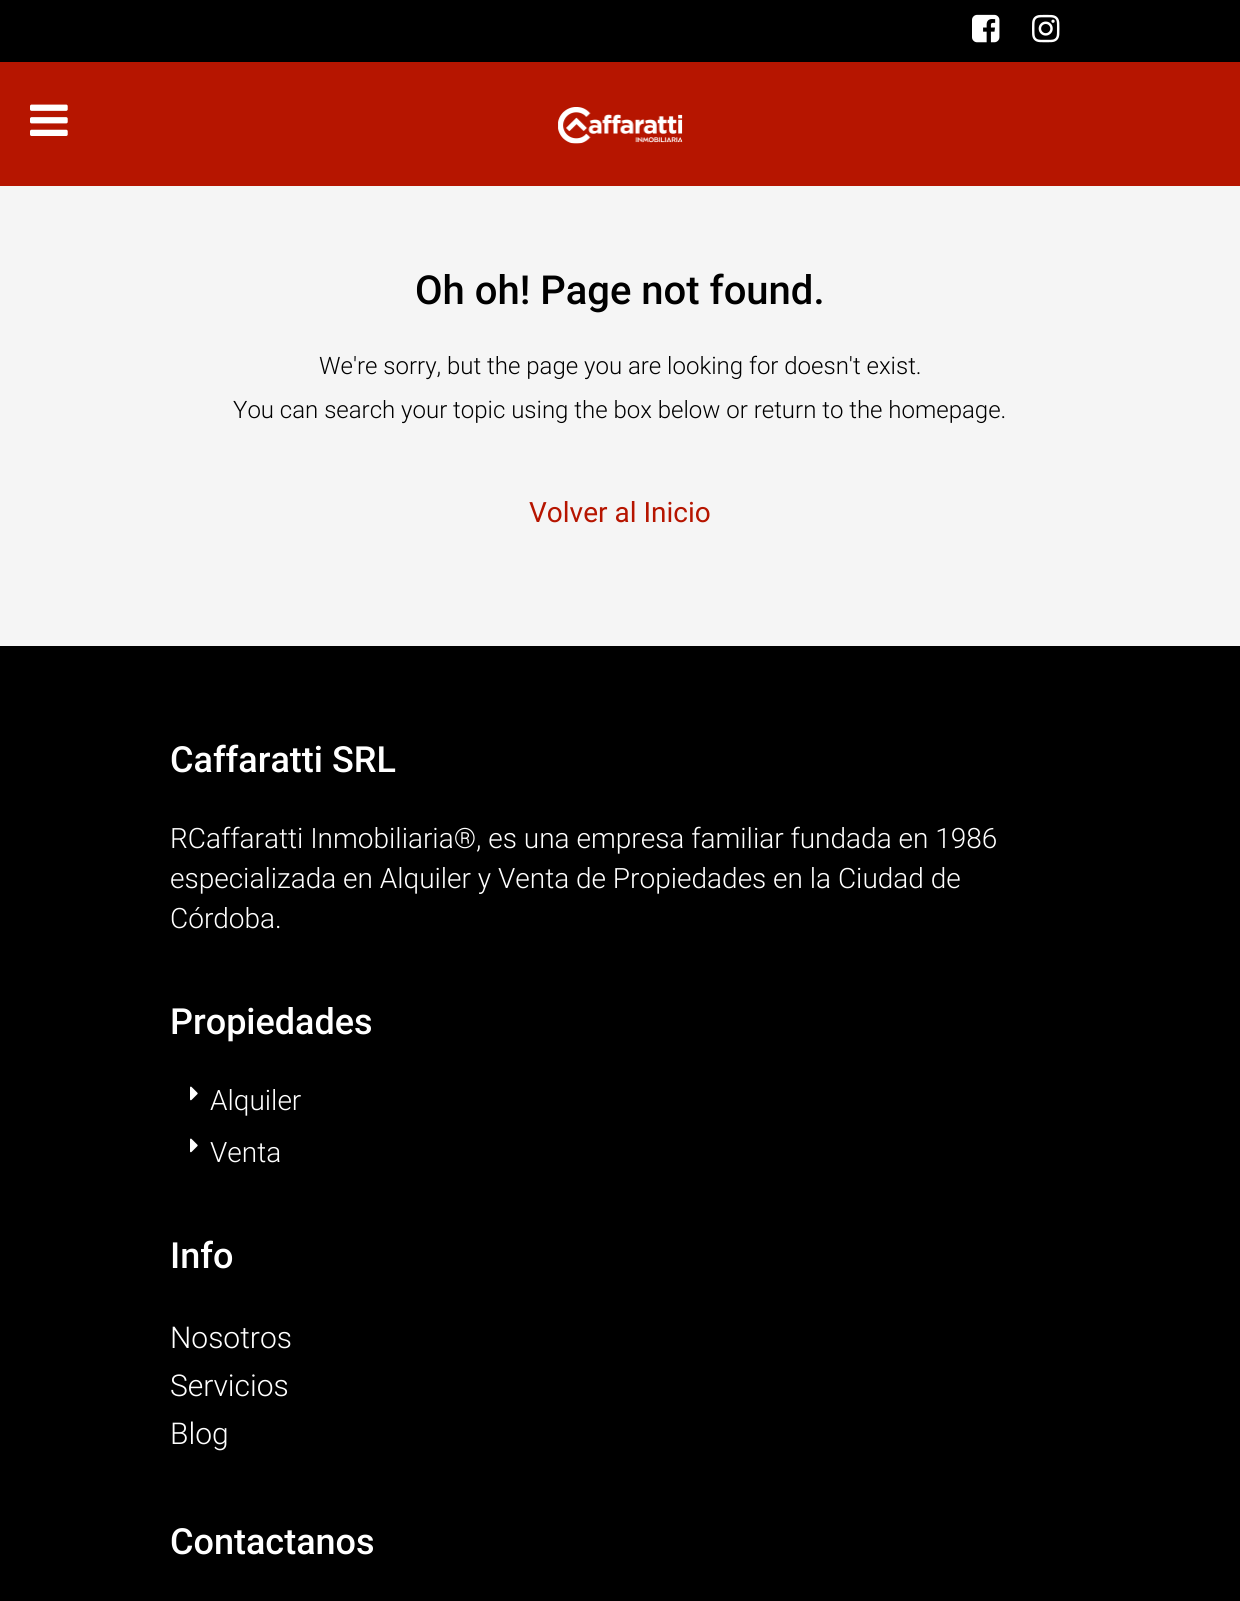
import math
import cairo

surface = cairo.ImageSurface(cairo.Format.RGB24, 1240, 1601)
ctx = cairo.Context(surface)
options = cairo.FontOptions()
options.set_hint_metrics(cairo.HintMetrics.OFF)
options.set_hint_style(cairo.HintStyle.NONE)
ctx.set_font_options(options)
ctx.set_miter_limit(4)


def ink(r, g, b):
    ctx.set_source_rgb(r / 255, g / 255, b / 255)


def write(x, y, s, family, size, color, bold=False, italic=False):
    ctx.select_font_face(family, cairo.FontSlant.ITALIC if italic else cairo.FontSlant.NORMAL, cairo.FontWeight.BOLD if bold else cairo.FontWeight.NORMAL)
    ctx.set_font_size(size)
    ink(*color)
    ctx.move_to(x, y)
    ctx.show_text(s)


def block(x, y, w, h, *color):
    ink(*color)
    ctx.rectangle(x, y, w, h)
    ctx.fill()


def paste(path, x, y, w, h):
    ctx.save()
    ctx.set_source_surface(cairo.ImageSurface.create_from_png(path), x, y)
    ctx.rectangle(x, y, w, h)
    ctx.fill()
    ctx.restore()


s1 = dict(family="Roboto Medium", size=40, color=(0, 0, 0))
s2 = dict(family="Roboto Light", size=24, color=(0, 0, 0))
s3 = dict(family="Roboto", size=28, color=(182, 21, 0))
s4 = dict(family="Roboto Medium", size=36, color=(255, 255, 255))
s5 = dict(family="Roboto Light", size=28, color=(255, 255, 255))
s6 = dict(family="Roboto Light", size=30, color=(255, 255, 255))

ink(245, 245, 245)
ctx.paint()
block(0, 0, 1240, 62, 0, 0, 0)
paste("pic1.png", 972, 14, 28, 29)
paste("pic2.png", 1032, 14, 28, 29)
block(0, 62, 1240, 124, 182, 21, 0)
paste("pic3.png", 30, 104, 38, 32)
paste("pic4.png", 558, 107, 125, 37)
write(415, 304, "Oh oh! Page not found.", **s1)
write(319, 374, "We're sorry, but the page you are looking for doesn't exist.", **s2)
write(233, 418, "You can search your topic using the box below or return to the homepage.", **s2)
write(529, 522, "Volver al Inicio", **s3)
block(0, 646, 1240, 955, 0, 0, 0)
write(170, 772, "Caffaratti SRL", **s4)
write(170, 848, "RCaffaratti Inmobiliaria®, es una empresa familiar fundada en 1986", **s5)
write(170, 888, "especializada en Alquiler y Venta de Propiedades en la Ciudad de", **s5)
write(170, 928, "Córdoba.", **s5)
write(170, 1034, "Propiedades", **s4)
paste("pic5.png", 190, 1086, 8, 15)
write(210, 1110, "Alquiler", **s5)
paste("pic5.png", 190, 1138, 8, 15)
write(210, 1162, "Venta", **s5)
write(170, 1268, "Info", **s4)
write(170, 1348, "Nosotros", **s6)
write(170, 1396, "Servicios", **s6)
write(170, 1444, "Blog", **s6)
write(170, 1554, "Contactanos", **s4)
surface.write_to_png("screenshot.png")
